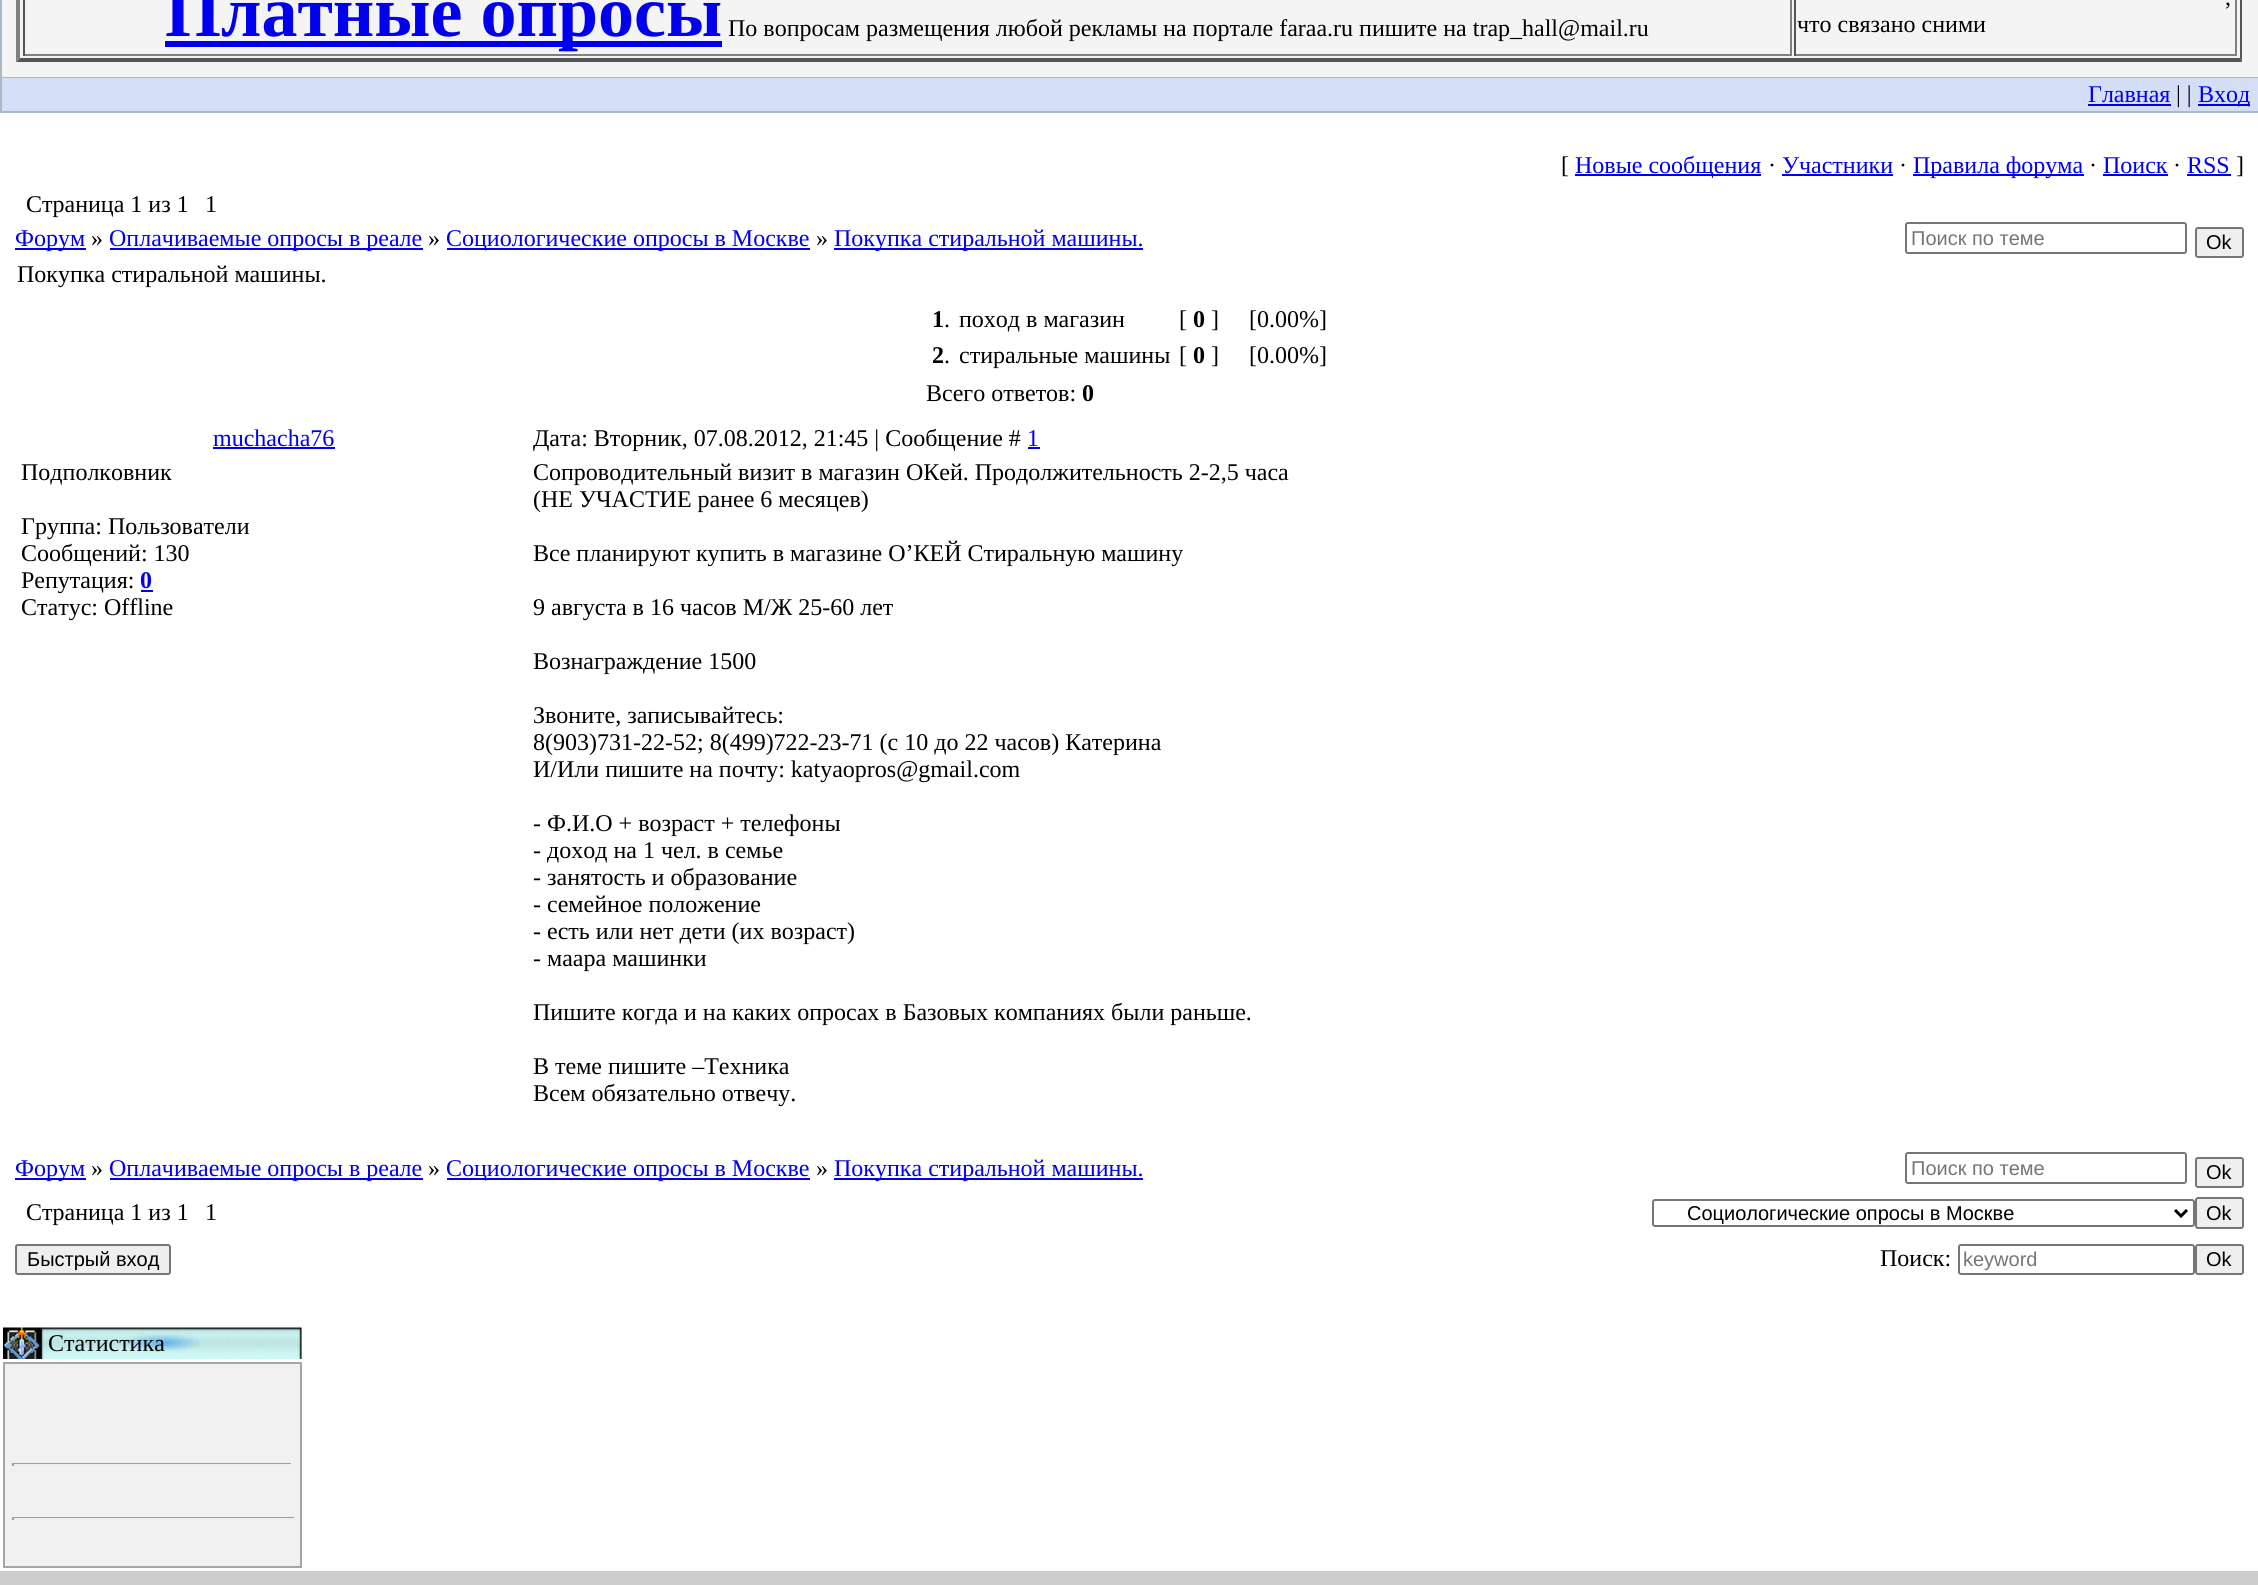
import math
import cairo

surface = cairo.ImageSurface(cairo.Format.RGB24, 2258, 1585)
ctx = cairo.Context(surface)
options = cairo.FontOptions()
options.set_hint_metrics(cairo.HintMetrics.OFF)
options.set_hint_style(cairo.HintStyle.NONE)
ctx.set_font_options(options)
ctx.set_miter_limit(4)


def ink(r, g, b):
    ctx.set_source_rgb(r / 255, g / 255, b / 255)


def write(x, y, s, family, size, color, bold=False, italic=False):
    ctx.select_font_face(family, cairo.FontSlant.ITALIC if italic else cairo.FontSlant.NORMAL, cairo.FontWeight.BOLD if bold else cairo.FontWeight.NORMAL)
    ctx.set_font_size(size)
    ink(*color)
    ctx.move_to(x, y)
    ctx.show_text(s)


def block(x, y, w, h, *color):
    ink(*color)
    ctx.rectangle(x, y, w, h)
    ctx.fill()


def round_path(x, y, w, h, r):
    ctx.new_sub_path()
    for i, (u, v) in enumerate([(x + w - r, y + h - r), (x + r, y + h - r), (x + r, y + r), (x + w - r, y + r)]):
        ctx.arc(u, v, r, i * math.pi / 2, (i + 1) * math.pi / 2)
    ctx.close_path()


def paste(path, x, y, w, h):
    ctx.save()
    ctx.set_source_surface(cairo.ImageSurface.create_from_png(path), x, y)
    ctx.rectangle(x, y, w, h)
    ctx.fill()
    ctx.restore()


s1 = dict(family="Liberation Serif", size=72, color=(0, 0, 238), bold=True)
s2 = dict(family="Liberation Serif", size=24, color=(0, 0, 0))
s3 = dict(family="Liberation Serif", size=24, color=(0, 0, 238))
s4 = dict(family="Liberation Sans", size=20, color=(117, 117, 117))
s5 = dict(family="Liberation Sans", size=20, color=(0, 0, 0))
s6 = dict(family="Liberation Serif", size=24, color=(0, 0, 0), bold=True)
s7 = dict(family="Liberation Serif", size=24, color=(0, 0, 238), bold=True)

ink(255, 255, 255)
ctx.paint()
ctx.rectangle(1, -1, 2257, 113)
ink(169, 184, 194)
ctx.stroke()
block(2, 0, 2256, 77, 244, 244, 244)
block(2, 77, 2256, 1, 169, 184, 194)
ink(85, 85, 85)
ctx.new_path()
ctx.move_to(2242, -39)
ctx.line_to(2242, 62)
ctx.line_to(2240, 58)
ctx.line_to(2240, -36)
ctx.close_path()
ctx.fill()
ctx.new_path()
ctx.move_to(2242, 62)
ctx.line_to(16, 62)
ctx.line_to(20, 58)
ctx.line_to(2240, 58)
ctx.close_path()
ctx.fill()
ink(128, 128, 128)
ctx.new_path()
ctx.move_to(16, 62)
ctx.line_to(16, -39)
ctx.line_to(20, -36)
ctx.line_to(20, 58)
ctx.close_path()
ctx.fill()
block(1790, 0, 2, 56, 128, 128, 128)
block(23, 54, 1768, 2, 128, 128, 128)
block(23, 0, 2, 56, 85, 85, 85)
block(165, 41, 557, 6, 0, 0, 238)
write(165, 36, "Платные опросы", **s1)
write(728, 36, "По вопросам размещения любой рекламы на портале faraa.ru пишите на trap_hall@mail.ru", **s2)
block(2235, 0, 2, 56, 128, 128, 128)
block(1794, 54, 443, 2, 128, 128, 128)
block(1794, 0, 2, 56, 85, 85, 85)
write(2225, 5, ",", **s2)
write(1797, 32, "что связано сними", **s2)
block(2, 78, 2256, 33, 212, 223, 247)
write(2088, 102, "Главная", **s3)
block(2088, 104, 83, 2, 0, 0, 238)
write(2176, 102, "| |", **s2)
block(2198, 104, 52, 2, 0, 0, 238)
write(2198, 102, "Вход", **s3)
write(1561, 173, "[", **s2)
block(1575, 174, 186, 2, 0, 0, 238)
write(1575, 173, "Новые сообщения", **s3)
write(1768, 173, "·", **s2)
write(1782, 173, "Участники", **s3)
block(1782, 174, 111, 2, 0, 0, 238)
write(1899, 173, "·", **s2)
block(1913, 174, 171, 2, 0, 0, 238)
write(1913, 173, "Правила форума", **s3)
write(2089, 173, "·", **s2)
write(2103, 173, "Поиск", **s3)
block(2103, 174, 65, 2, 0, 0, 238)
write(2173, 173, "·", **s2)
write(2187, 173, "RSS", **s3)
block(2187, 174, 44, 2, 0, 0, 238)
write(2236, 173, "]", **s2)
write(26, 212, "Страница 1 из 1", **s2)
write(205, 212, "1", **s2)
block(15, 248, 71, 2, 0, 0, 238)
write(15, 246, "Форум", **s3)
write(91, 246, "»", **s2)
block(110, 248, 313, 2, 0, 0, 238)
write(109, 246, "Оплачиваемые опросы в реале", **s3)
write(428, 246, "»", **s2)
block(447, 248, 363, 2, 0, 0, 238)
write(446, 246, "Социологические опросы в Москве", **s3)
write(816, 246, "»", **s2)
block(834, 248, 309, 2, 0, 0, 238)
write(834, 246, "Покупка стиральной машины.", **s3)
round_path(1906, 223, 280, 30, 2)
ink(118, 118, 118)
ctx.stroke()
write(1911, 245, "Поиск по теме", **s4)
ink(239, 239, 239)
round_path(2196, 228, 47, 29, 2)
ctx.fill_preserve()
ink(118, 118, 118)
ctx.stroke()
write(2206, 249, "Ok", **s5)
write(17, 282, "Покупка стиральной машины.", **s2)
write(932, 327, "1", **s6)
write(944, 327, ".", **s2)
write(959, 327, "поход в магазин", **s2)
write(1179, 327, "[", **s2)
write(1193, 327, "0", **s6)
write(1211, 327, "]", **s2)
write(1249, 327, "[0.00%]", **s2)
write(932, 363, "2", **s6)
write(944, 363, ".", **s2)
write(959, 363, "стиральные машины", **s2)
write(1179, 363, "[", **s2)
write(1193, 363, "0", **s6)
write(1211, 363, "]", **s2)
write(1249, 363, "[0.00%]", **s2)
write(926, 401, "Всего ответов:", **s2)
write(1082, 401, "0", **s6)
write(213, 446, "muchacha76", **s3)
block(213, 447, 122, 2, 0, 0, 238)
write(533, 446, "Дата: Вторник, 07.08.2012, 21:45 | Сообщение #", **s2)
write(1027, 446, "1", **s3)
block(1028, 447, 12, 2, 0, 0, 238)
write(21, 480, "Подполковник", **s2)
write(21, 534, "Группа: Пользователи", **s2)
write(21, 561, "Сообщений: 130", **s2)
write(21, 588, "Репутация:", **s2)
write(140, 588, "0", **s7)
block(141, 590, 12, 2, 0, 0, 238)
write(21, 615, "Статус: Offline", **s2)
write(533, 480, "Сопроводительный визит в магазин ОКей. Продолжительность 2-2,5 часа", **s2)
write(533, 507, "(НЕ УЧАСТИЕ ранее 6 месяцев)", **s2)
write(533, 561, "Все планируют купить в магазине О’КЕЙ Стиральную машину", **s2)
write(533, 615, "9 августа в 16 часов М/Ж 25-60 лет", **s2)
write(533, 669, "Вознаграждение 1500", **s2)
write(533, 723, "Звоните, записывайтесь:", **s2)
write(533, 750, "8(903)731-22-52; 8(499)722-23-71 (с 10 до 22 часов) Катерина", **s2)
write(533, 777, "И/Или пишите на почту: katyaopros@gmail.com", **s2)
write(533, 831, "- Ф.И.О + возраст + телефоны", **s2)
write(533, 858, "- доход на 1 чел. в семье", **s2)
write(533, 885, "- занятость и образование", **s2)
write(533, 912, "- семейное положение", **s2)
write(533, 939, "- есть или нет дети (их возраст)", **s2)
write(533, 966, "- маара машинки", **s2)
write(533, 1020, "Пишите когда и на каких опросах в Базовых компаниях были раньше.", **s2)
write(533, 1074, "В теме пишите –Техника", **s2)
write(533, 1101, "Всем обязательно отвечу.", **s2)
block(15, 1178, 71, 2, 0, 0, 238)
write(15, 1176, "Форум", **s3)
write(91, 1176, "»", **s2)
block(110, 1178, 313, 2, 0, 0, 238)
write(109, 1176, "Оплачиваемые опросы в реале", **s3)
write(428, 1176, "»", **s2)
block(447, 1178, 363, 2, 0, 0, 238)
write(446, 1176, "Социологические опросы в Москве", **s3)
write(816, 1176, "»", **s2)
block(834, 1178, 309, 2, 0, 0, 238)
write(834, 1176, "Покупка стиральной машины.", **s3)
round_path(1906, 1153, 280, 30, 2)
ink(118, 118, 118)
ctx.stroke()
write(1911, 1175, "Поиск по теме", **s4)
ink(239, 239, 239)
round_path(2196, 1158, 47, 29, 2)
ctx.fill_preserve()
ink(118, 118, 118)
ctx.stroke()
write(2206, 1179, "Ok", **s5)
write(26, 1220, "Страница 1 из 1", **s2)
write(205, 1220, "1", **s2)
round_path(1653, 1200, 541, 26, 2)
ink(118, 118, 118)
ctx.stroke()
ctx.new_path()
ctx.move_to(2175, 1210)
ctx.line_to(2181, 1216)
ctx.line_to(2187, 1210)
ink(0, 0, 0)
ctx.set_line_width(3)
ctx.stroke()
write(1687, 1220, "Социологические опросы в Москве", **s5)
ink(239, 239, 239)
round_path(2196, 1198, 47, 30, 2)
ctx.fill_preserve()
ink(118, 118, 118)
ctx.set_line_width(2)
ctx.stroke()
write(2206, 1220, "Ok", **s5)
ink(239, 239, 239)
round_path(16, 1245, 154, 29, 2)
ctx.fill_preserve()
ink(118, 118, 118)
ctx.stroke()
write(27, 1266, "Быстрый вход", **s5)
write(1880, 1266, "Поиск:", **s2)
round_path(1959, 1245, 235, 29, 2)
ink(118, 118, 118)
ctx.stroke()
write(1963, 1266, "keyword", **s4)
ink(239, 239, 239)
round_path(2196, 1245, 47, 29, 2)
ctx.fill_preserve()
ink(118, 118, 118)
ctx.stroke()
write(2206, 1266, "Ok", **s5)
block(301, 1328, 1, 31, 212, 223, 247)
paste("pic1.png", 3, 1327, 299, 32)
write(48, 1351, "Статистика", **s2)
ink(241, 241, 241)
ctx.rectangle(4, 1363, 297, 204)
ctx.fill_preserve()
ink(167, 166, 166)
ctx.stroke()
block(12, 1463, 281, 1, 159, 159, 159)
block(291, 1463, 2, 3, 238, 238, 238)
block(12, 1464, 281, 2, 238, 238, 238)
block(12, 1463, 2, 3, 159, 159, 159)
block(12, 1517, 284, 1, 159, 159, 159)
block(294, 1517, 2, 3, 238, 238, 238)
block(12, 1518, 284, 2, 238, 238, 238)
block(12, 1517, 2, 3, 159, 159, 159)
block(0, 1571, 2258, 14, 204, 204, 204)
surface.write_to_png("screenshot.png")
